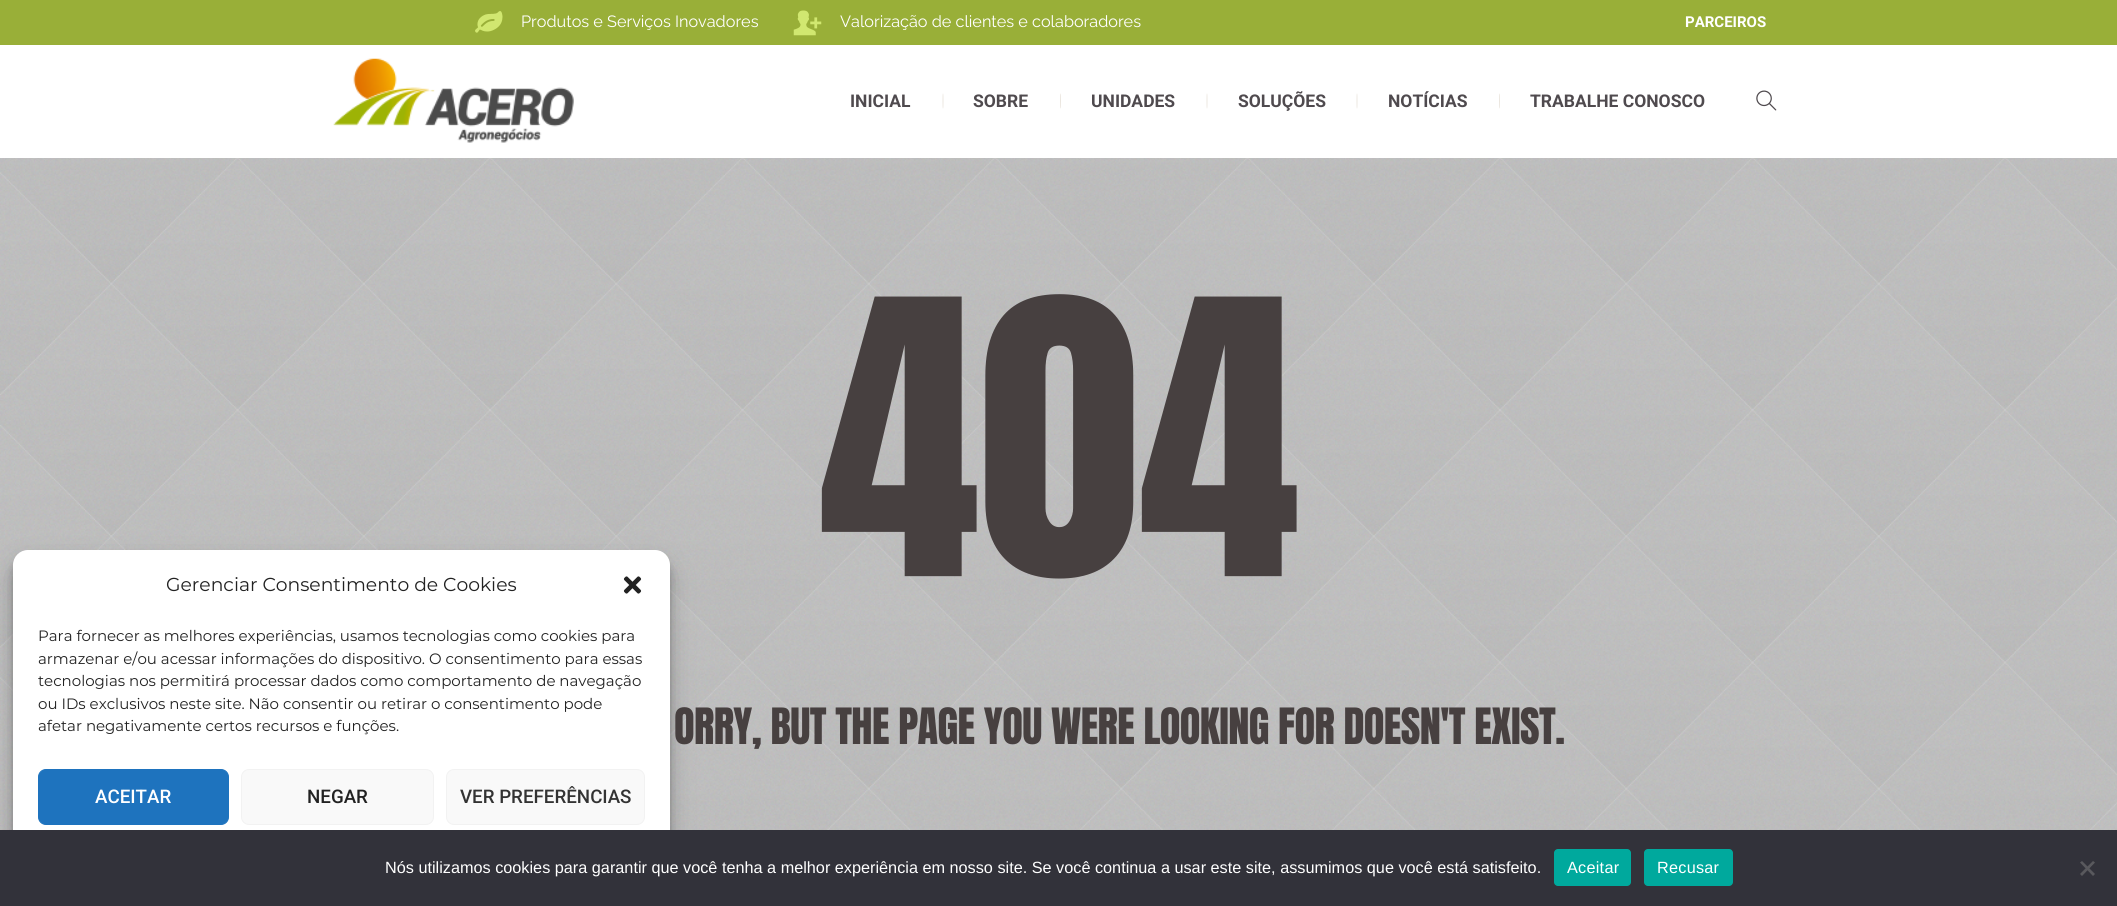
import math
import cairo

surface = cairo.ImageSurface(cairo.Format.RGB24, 2117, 906)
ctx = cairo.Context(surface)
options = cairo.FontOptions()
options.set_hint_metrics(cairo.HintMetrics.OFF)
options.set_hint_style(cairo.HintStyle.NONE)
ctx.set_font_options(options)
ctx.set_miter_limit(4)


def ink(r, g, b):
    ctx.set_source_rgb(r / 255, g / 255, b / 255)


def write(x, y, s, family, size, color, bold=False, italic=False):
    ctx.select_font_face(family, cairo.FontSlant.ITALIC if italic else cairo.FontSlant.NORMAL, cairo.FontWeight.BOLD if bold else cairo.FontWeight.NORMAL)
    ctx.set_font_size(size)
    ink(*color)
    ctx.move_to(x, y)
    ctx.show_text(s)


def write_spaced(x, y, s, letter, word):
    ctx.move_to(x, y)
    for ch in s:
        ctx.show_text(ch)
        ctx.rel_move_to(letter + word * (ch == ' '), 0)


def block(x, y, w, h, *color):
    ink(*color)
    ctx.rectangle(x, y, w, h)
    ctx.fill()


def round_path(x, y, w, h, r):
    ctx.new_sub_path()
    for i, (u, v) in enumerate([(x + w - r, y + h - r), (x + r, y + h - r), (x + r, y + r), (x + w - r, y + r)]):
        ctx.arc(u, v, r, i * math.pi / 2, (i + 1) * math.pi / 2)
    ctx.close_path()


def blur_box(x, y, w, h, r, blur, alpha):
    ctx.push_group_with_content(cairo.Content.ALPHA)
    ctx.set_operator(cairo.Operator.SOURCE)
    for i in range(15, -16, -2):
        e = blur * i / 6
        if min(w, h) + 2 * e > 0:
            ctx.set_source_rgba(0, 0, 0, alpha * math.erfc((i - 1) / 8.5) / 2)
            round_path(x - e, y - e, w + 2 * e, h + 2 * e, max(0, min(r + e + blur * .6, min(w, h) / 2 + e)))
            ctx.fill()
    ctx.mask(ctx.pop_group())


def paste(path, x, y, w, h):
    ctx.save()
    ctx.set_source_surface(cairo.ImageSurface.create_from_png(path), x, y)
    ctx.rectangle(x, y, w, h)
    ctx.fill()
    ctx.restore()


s1 = dict(family="Montserrat", size=18.75, color=(34, 34, 34))
s2 = dict(family="Montserrat", size=15, color=(34, 34, 34))
s3 = dict(family="Roboto Medium", size=18.75, color=(255, 255, 255))
s4 = dict(family="Roboto Medium", size=18.75, color=(34, 34, 34))
s5 = dict(family="Roboto Medium", size=18.75, color=(51, 51, 51))
s6 = dict(family="Raleway", size=16.25, color=(255, 255, 255))
s7 = dict(family="Roboto", size=15, color=(255, 255, 255), bold=True)
s8 = dict(family="Roboto", size=17.5, color=(79, 74, 78), bold=True)
s9 = dict(family="Liberation Sans", size=16.25, color=(255, 255, 255))

ink(255, 255, 255)
ctx.paint()
paste("pic6.png", 0, 158, 2117, 672)
ink(0, 0, 0)
blur_box(13, 558, 657, 343, 15, 4, 0.23)
blur_box(13, 563, 657, 343, 15, 12.5, 0.19)
ink(255, 255, 255)
round_path(13, 550, 657, 344, 15)
ctx.fill()
write(166, 591, "Gerenciar Consentimento de Cookies", **s1)
paste("pic1.png", 623, 576, 19, 18)
write(38, 641, "Para fornecer as melhores experiências, usamos tecnologias como cookies para", **s2)
write(38, 664, "armazenar e/ou acessar informações do dispositivo. O consentimento para essas", **s2)
write(38, 686, "tecnologias nos permitirá processar dados como comportamento de navegação", **s2)
write(38, 709, "ou IDs exclusivos neste site. Não consentir ou retirar o consentimento pode", **s2)
write(38, 731, "afetar negativamente certos recursos e funções.", **s2)
ink(30, 115, 190)
round_path(38.5, 769.5, 190, 55, 7.5)
ctx.fill_preserve()
ctx.set_line_width(1)
ctx.stroke()
write(95, 803, "ACEITAR", **s3)
ink(249, 249, 249)
round_path(241.5, 769.5, 192, 55, 7.5)
ctx.fill_preserve()
ink(242, 242, 242)
ctx.stroke()
write(307, 803, "NEGAR", **s4)
ink(249, 249, 249)
round_path(446.5, 769.5, 198, 55, 7.5)
ctx.fill_preserve()
ink(242, 242, 242)
ctx.stroke()
write(460, 803, "VER PREFERÊNCIAS", **s5)
block(0, 0, 2117, 45, 153, 175, 56)
paste("pic2.png", 475, 11, 28, 22)
write(521, 27, "Produtos e Serviços Inovadores", **s6)
paste("pic3.png", 793, 10, 29, 26)
write(840, 27, "Valorização de clientes e colaboradores", **s6)
write(1685, 27, "PARCEIROS", **s7)
paste("pic4.png", 333, 58, 241, 85)
write(850, 107, "INICIAL", **s8)
ink(235, 230, 223)
ctx.new_path()
ctx.move_to(943, 93.5)
ctx.curve_to(943.5, 93.5, 943.5, 97, 943.5, 101)
ctx.curve_to(943.5, 105, 943.5, 108.5, 943, 108.5)
ctx.curve_to(942.5, 108.5, 942.5, 105, 942.5, 101)
ctx.curve_to(942.5, 97, 942.5, 93.5, 943, 93.5)
ctx.close_path()
ctx.fill()
write(973, 107, "SOBRE", **s8)
ink(235, 230, 223)
ctx.new_path()
ctx.move_to(1060.5, 93.5)
ctx.curve_to(1061, 93.5, 1061, 97, 1061, 101)
ctx.curve_to(1061, 105, 1061, 108.5, 1060.5, 108.5)
ctx.curve_to(1060, 108.5, 1060, 105, 1060, 101)
ctx.curve_to(1060, 97, 1060, 93.5, 1060.5, 93.5)
ctx.close_path()
ctx.fill()
write(1091, 107, "UNIDADES", **s8)
ink(235, 230, 223)
ctx.new_path()
ctx.move_to(1207, 93.5)
ctx.curve_to(1207.5, 93.5, 1207.5, 97, 1207.5, 101)
ctx.curve_to(1207.5, 105, 1207.5, 108.5, 1207, 108.5)
ctx.curve_to(1206.5, 108.5, 1206.5, 105, 1206.5, 101)
ctx.curve_to(1206.5, 97, 1206.5, 93.5, 1207, 93.5)
ctx.close_path()
ctx.fill()
write(1238, 107, "SOLUÇÕES", **s8)
ink(235, 230, 223)
ctx.new_path()
ctx.move_to(1357, 93.5)
ctx.curve_to(1357.5, 93.5, 1357.5, 97, 1357.5, 101)
ctx.curve_to(1357.5, 105, 1357.5, 108.5, 1357, 108.5)
ctx.curve_to(1356.5, 108.5, 1356.5, 105, 1356.5, 101)
ctx.curve_to(1356.5, 97, 1356.5, 93.5, 1357, 93.5)
ctx.close_path()
ctx.fill()
write(1388, 107, "NOTÍCIAS", **s8)
ink(235, 230, 223)
ctx.new_path()
ctx.move_to(1499.5, 93.5)
ctx.curve_to(1500, 93.5, 1500, 97, 1500, 101)
ctx.curve_to(1500, 105, 1500, 108.5, 1499.5, 108.5)
ctx.curve_to(1499, 108.5, 1499, 105, 1499, 101)
ctx.curve_to(1499, 97, 1499, 93.5, 1499.5, 93.5)
ctx.close_path()
ctx.fill()
write(1530, 107, "TRABALHE CONOSCO", **s8)
paste("pic5.png", 1756, 90, 21, 21)
ctx.select_font_face("Anton")
ctx.set_font_size(325)
ink(71, 64, 64)
write_spaced(819, 576, "404", -0.62, 0)
ctx.set_font_size(42.5)
write_spaced(674, 744, "ORRY, BUT THE PAGE YOU WERE LOOKING FOR DOESN'T EXIST.", -0.62, 0)
block(0, 830, 2117, 76, 50, 50, 58)
write(385, 873, "Nós utilizamos cookies para garantir que você tenha a melhor experiência em nosso site. Se você continua a usar este site, assumimos que você está satisfeito.", **s9)
ink(0, 169, 157)
round_path(1554, 849, 77, 37, 4)
ctx.fill()
ink(255, 255, 255)
write_spaced(1567, 873, "Aceitar", 0.25, 0)
ink(0, 169, 157)
round_path(1644, 849, 89, 37, 4)
ctx.fill()
ink(255, 255, 255)
write_spaced(1657, 873, "Recusar", 0.25, 0)
ink(89, 89, 93)
ctx.new_path()
ctx.move_to(2093, 861)
ctx.line_to(2095, 862.5)
ctx.line_to(2082, 876)
ctx.line_to(2080, 874)
ctx.close_path()
ctx.fill()
ctx.new_path()
ctx.move_to(2080, 862.5)
ctx.line_to(2082, 861)
ctx.line_to(2095, 874)
ctx.line_to(2093, 876)
ctx.close_path()
ctx.fill()
surface.write_to_png("screenshot.png")
